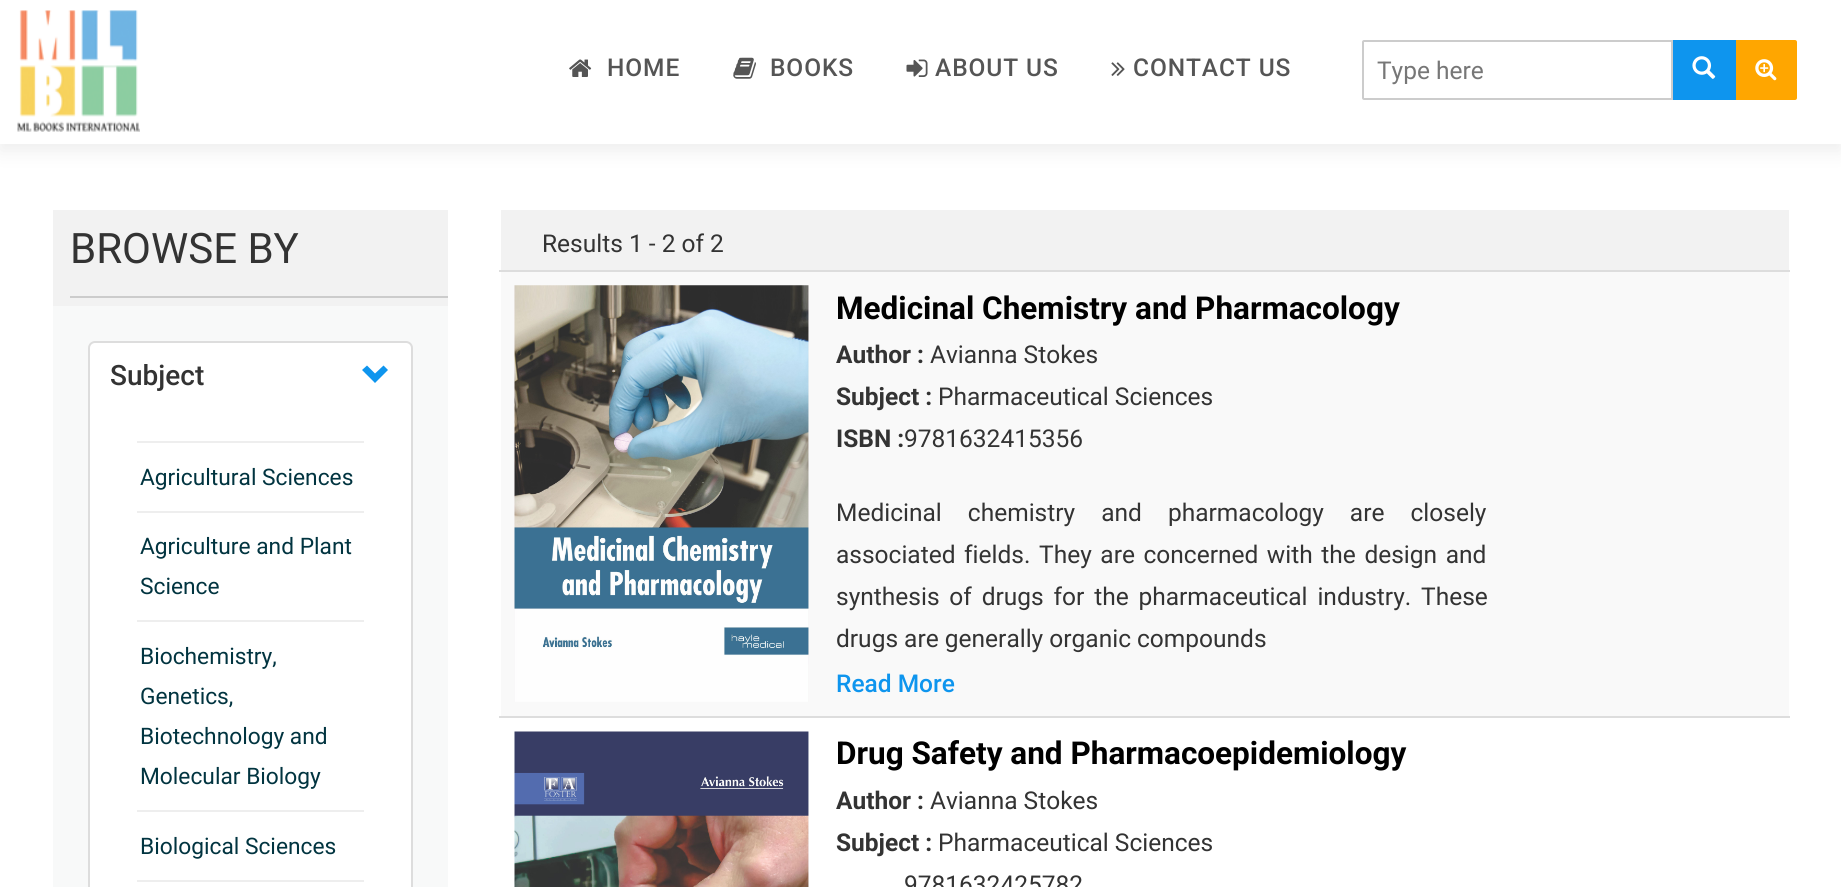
import math
import cairo

surface = cairo.ImageSurface(cairo.Format.RGB24, 1841, 887)
ctx = cairo.Context(surface)
options = cairo.FontOptions()
options.set_hint_metrics(cairo.HintMetrics.OFF)
options.set_hint_style(cairo.HintStyle.NONE)
ctx.set_font_options(options)
ctx.set_miter_limit(4)


def ink(r, g, b):
    ctx.set_source_rgb(r / 255, g / 255, b / 255)


def write(x, y, s, family, size, color, bold=False, italic=False):
    ctx.select_font_face(family, cairo.FontSlant.ITALIC if italic else cairo.FontSlant.NORMAL, cairo.FontWeight.BOLD if bold else cairo.FontWeight.NORMAL)
    ctx.set_font_size(size)
    ink(*color)
    ctx.move_to(x, y)
    ctx.show_text(s)


def write_spaced(x, y, s, letter, word):
    ctx.move_to(x, y)
    for ch in s:
        ctx.show_text(ch)
        ctx.rel_move_to(letter + word * (ch == ' '), 0)


def block(x, y, w, h, *color):
    ink(*color)
    ctx.rectangle(x, y, w, h)
    ctx.fill()


def round_path(x, y, w, h, r):
    ctx.new_sub_path()
    for i, (u, v) in enumerate([(x + w - r, y + h - r), (x + r, y + h - r), (x + r, y + r), (x + w - r, y + r)]):
        ctx.arc(u, v, r, i * math.pi / 2, (i + 1) * math.pi / 2)
    ctx.close_path()


def blur_box(x, y, w, h, r, blur, alpha):
    ctx.push_group_with_content(cairo.Content.ALPHA)
    ctx.set_operator(cairo.Operator.SOURCE)
    for i in range(15, -16, -2):
        e = blur * i / 6
        if min(w, h) + 2 * e > 0:
            ctx.set_source_rgba(0, 0, 0, alpha * math.erfc((i - 1) / 8.5) / 2)
            round_path(x - e, y - e, w + 2 * e, h + 2 * e, max(0, min(r + e + blur * .6, min(w, h) / 2 + e)))
            ctx.fill()
    ctx.mask(ctx.pop_group())


def paste(path, x, y, w, h):
    ctx.save()
    ctx.set_source_surface(cairo.ImageSurface.create_from_png(path), x, y)
    ctx.rectangle(x, y, w, h)
    ctx.fill()
    ctx.restore()


s1 = dict(family="Roboto", size=24.5, color=(119, 119, 119))
s2 = dict(family="Roboto", size=42, color=(51, 51, 51))
s3 = dict(family="Roboto Medium", size=28, color=(51, 51, 51))
s4 = dict(family="Roboto", size=22.75, color=(1, 52, 64))
s5 = dict(family="Roboto", size=24.5, color=(51, 51, 51))
s6 = dict(family="Roboto", size=31.5, color=(0, 0, 0), bold=True)
s7 = dict(family="Roboto", size=24.5, color=(51, 51, 51), bold=True)
s8 = dict(family="Roboto Medium", size=24.5, color=(14, 149, 238))

ink(255, 255, 255)
ctx.paint()
ink(238, 238, 238)
blur_box(0, 7, 1841, 144, 0, 9, 1)
block(0, 0, 1841, 144, 255, 255, 255)
paste("pic1.png", 17, 10, 123, 122)
paste("pic2.png", 569, 59, 23, 18)
ctx.select_font_face("Roboto Medium")
ctx.set_font_size(24.5)
ink(85, 85, 85)
write_spaced(607, 76, "HOME", 0.9, 0)
paste("pic3.png", 733, 57, 23, 22)
write_spaced(770, 76, "BOOKS", 0.9, 0)
paste("pic4.png", 906, 59, 22, 18)
write_spaced(935, 76, "ABOUT US", 0.9, 0)
paste("pic5.png", 1111, 62, 14, 14)
write_spaced(1133, 76, "CONTACT US", 0.9, 0)
ctx.new_path()
ctx.move_to(1364, 41)
ctx.line_to(1672, 41)
ctx.line_to(1672, 99)
ctx.line_to(1364, 99)
ctx.curve_to(1363.5, 99, 1363, 98.5, 1363, 98)
ctx.line_to(1363, 42)
ctx.curve_to(1363, 41.5, 1363.5, 41, 1364, 41)
ctx.close_path()
ink(204, 204, 204)
ctx.stroke()
write(1377, 79, "Type here", **s1)
block(1673, 40, 63, 60, 14, 149, 238)
paste("pic6.png", 1692, 56, 24, 23)
ink(255, 166, 0)
ctx.new_path()
ctx.move_to(1737, 41)
ctx.line_to(1795, 41)
ctx.curve_to(1795.5, 41, 1796, 41.5, 1796, 42)
ctx.line_to(1796, 98)
ctx.curve_to(1796, 98.5, 1795.5, 99, 1795, 99)
ctx.line_to(1737, 99)
ctx.close_path()
ctx.fill_preserve()
ctx.stroke()
paste("pic7.png", 1755, 59, 22, 22)
block(53, 210, 395, 96, 242, 242, 242)
block(70, 296, 378, 2, 204, 204, 204)
write(70, 263, "BROWSE BY", **s2)
block(53, 306, 395, 581, 248, 249, 249)
ink(255, 255, 255)
round_path(89, 342, 323, 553, 6)
ctx.fill_preserve()
ink(221, 221, 221)
ctx.stroke()
write(110, 385, "Subject", **s3)
ink(14, 149, 238)
ctx.new_path()
ctx.move_to(388, 370)
ctx.line_to(375, 383)
ctx.line_to(362, 370)
ctx.line_to(367, 365.5)
ctx.line_to(375, 373.5)
ctx.line_to(383.5, 365.5)
ctx.close_path()
ctx.fill()
block(137, 441, 227, 2, 238, 238, 238)
write(140, 485, "Agricultural Sciences", **s4)
block(137, 511, 227, 2, 238, 238, 238)
write(140, 554, "Agriculture and Plant", **s4)
write(140, 594, "Science", **s4)
block(137, 620, 227, 2, 238, 238, 238)
write(140, 664, "Biochemistry,", **s4)
write(140, 704, "Genetics,", **s4)
write(140, 744, "Biotechnology and", **s4)
write(140, 784, "Molecular Biology", **s4)
block(137, 810, 227, 2, 238, 238, 238)
write(140, 854, "Biological Sciences", **s4)
block(137, 880, 227, 2, 238, 238, 238)
block(501, 210, 1288, 60, 242, 242, 242)
write(542, 252, "Results 1 - 2 of 2", **s5)
block(501, 272, 1288, 444, 249, 249, 249)
paste("pic8.png", 514, 285, 295, 417)
block(499, 270, 1291, 2, 221, 221, 221)
write(836, 319, "Medicinal Chemistry and Pharmacology", **s6)
write(836, 363, "Author :", **s7)
write(930, 363, "Avianna Stokes", **s5)
write(836, 405, "Subject :", **s7)
write(938, 405, "Pharmaceutical Sciences", **s5)
write(836, 447, "ISBN :", **s7)
write(904, 447, "9781632415356", **s5)
write_spaced(836, 521, "Medicinal chemistry and pharmacology are closely", 0, 20)
write_spaced(836, 563, "associated fields. They are concerned with the design and", 0, 2.5)
write_spaced(836, 605, "synthesis of drugs for the pharmaceutical industry. These", 0, 3.75)
write(836, 647, "drugs are generally organic compounds", **s5)
write(836, 692, "Read More", **s8)
paste("pic9.png", 514, 731, 295, 156)
block(499, 716, 1291, 2, 221, 221, 221)
write(836, 764, "Drug Safety and Pharmacoepidemiology", **s6)
write(836, 809, "Author :", **s7)
write(930, 809, "Avianna Stokes", **s5)
write(836, 851, "Subject :", **s7)
write(938, 851, "Pharmaceutical Sciences", **s5)
write(904, 893, "9781632425782", **s5)
surface.write_to_png("screenshot.png")
